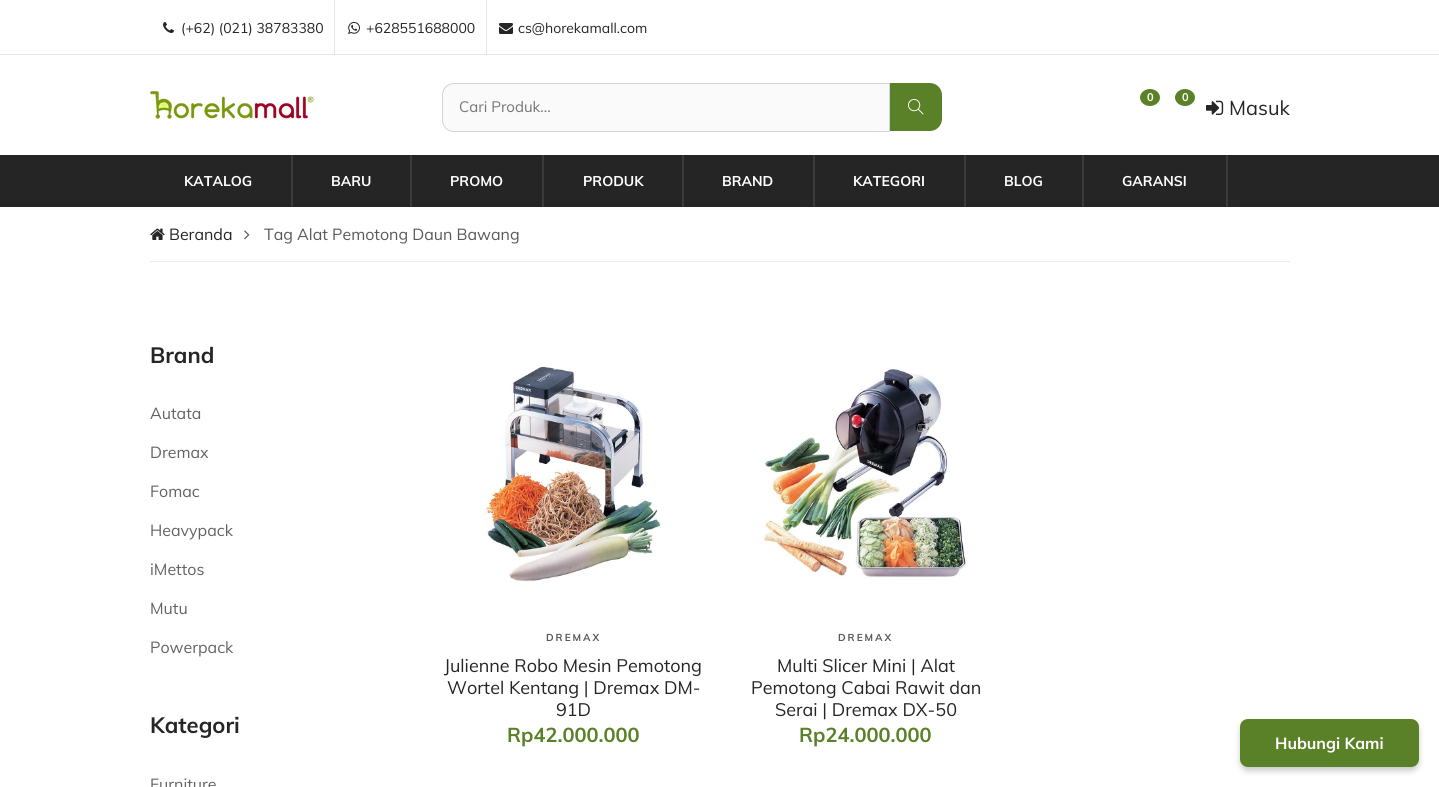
import math
import cairo

surface = cairo.ImageSurface(cairo.Format.RGB24, 1439, 787)
ctx = cairo.Context(surface)
options = cairo.FontOptions()
options.set_hint_metrics(cairo.HintMetrics.OFF)
options.set_hint_style(cairo.HintStyle.NONE)
ctx.set_font_options(options)
ctx.set_miter_limit(4)


def ink(r, g, b):
    ctx.set_source_rgb(r / 255, g / 255, b / 255)


def write(x, y, s, family, size, color, bold=False, italic=False):
    ctx.select_font_face(family, cairo.FontSlant.ITALIC if italic else cairo.FontSlant.NORMAL, cairo.FontWeight.BOLD if bold else cairo.FontWeight.NORMAL)
    ctx.set_font_size(size)
    ink(*color)
    ctx.move_to(x, y)
    ctx.show_text(s)


def write_spaced(x, y, s, letter, word):
    ctx.move_to(x, y)
    for ch in s:
        ctx.show_text(ch)
        ctx.rel_move_to(letter + word * (ch == ' '), 0)


def block(x, y, w, h, *color):
    ink(*color)
    ctx.rectangle(x, y, w, h)
    ctx.fill()


def round_path(x, y, w, h, r):
    ctx.new_sub_path()
    for i, (u, v) in enumerate([(x + w - r, y + h - r), (x + r, y + h - r), (x + r, y + r), (x + w - r, y + r)]):
        ctx.arc(u, v, r, i * math.pi / 2, (i + 1) * math.pi / 2)
    ctx.close_path()


def blur_box(x, y, w, h, r, blur, alpha):
    ctx.push_group_with_content(cairo.Content.ALPHA)
    ctx.set_operator(cairo.Operator.SOURCE)
    for i in range(15, -16, -2):
        e = blur * i / 6
        if min(w, h) + 2 * e > 0:
            ctx.set_source_rgba(0, 0, 0, alpha * math.erfc((i - 1) / 8.5) / 2)
            round_path(x - e, y - e, w + 2 * e, h + 2 * e, max(0, min(r + e + blur * .6, min(w, h) / 2 + e)))
            ctx.fill()
    ctx.mask(ctx.pop_group())


def paste(path, x, y, w, h):
    ctx.save()
    ctx.set_source_surface(cairo.ImageSurface.create_from_png(path), x, y)
    ctx.rectangle(x, y, w, h)
    ctx.fill()
    ctx.restore()


s1 = dict(family="Muli", size=14, color=(37, 37, 37))
s2 = dict(family="Muli", size=15, color=(117, 117, 117))
s3 = dict(family="Muli", size=11, color=(255, 255, 255), bold=True)
s4 = dict(family="Muli", size=20, color=(37, 37, 37))
s5 = dict(family="Muli", size=14, color=(255, 255, 255), bold=True)
s6 = dict(family="Muli", size=16, color=(37, 37, 37))
s7 = dict(family="Muli", size=16, color=(89, 89, 89))
s8 = dict(family="Muli", size=22, color=(37, 37, 37), bold=True)
s9 = dict(family="Muli", size=16, color=(99, 99, 99))
s10 = dict(family="Muli", size=18, color=(37, 37, 37))
s11 = dict(family="Muli", size=20, color=(90, 129, 39), bold=True)
s12 = dict(family="Muli", size=16, color=(255, 255, 255), bold=True)

ink(255, 255, 255)
ctx.paint()
block(0, 54, 1439, 1, 229, 229, 229)
block(334, 0, 1, 54, 229, 229, 229)
paste("pic1.png", 163, 22, 11, 11)
write(181, 33, "(+62) (021) 38783380", **s1)
block(486, 0, 1, 54, 229, 229, 229)
paste("pic2.png", 348, 22, 12, 12)
write(366, 33, "+628551688000", **s1)
paste("pic3.png", 499, 23, 14, 11)
write(518, 33, "cs@horekamall.com", **s1)
paste("pic4.png", 150, 91, 164, 28)
ink(250, 250, 250)
ctx.new_path()
ctx.move_to(454, 83.5)
ctx.line_to(889.5, 83.5)
ctx.line_to(889.5, 131.5)
ctx.line_to(454, 131.5)
ctx.curve_to(447.5, 131.5, 442.5, 126.5, 442.5, 120)
ctx.line_to(442.5, 95)
ctx.curve_to(442.5, 88.5, 447.5, 83.5, 454, 83.5)
ctx.close_path()
ctx.fill_preserve()
ink(209, 213, 219)
ctx.set_line_width(1)
ctx.stroke()
write(459, 112, "Cari Produk...", **s2)
ink(90, 129, 39)
ctx.new_path()
ctx.move_to(890, 83)
ctx.line_to(930, 83)
ctx.curve_to(936.5, 83, 942, 88.5, 942, 95)
ctx.line_to(942, 119)
ctx.curve_to(942, 125.5, 936.5, 131, 930, 131)
ctx.line_to(890, 131)
ctx.close_path()
ctx.fill()
paste("pic5.png", 908, 99, 16, 16)
ctx.new_path()
ctx.move_to(1150, 89)
ctx.curve_to(1155.5, 89, 1160, 93, 1160, 97.5)
ctx.curve_to(1160, 102, 1155.5, 106, 1150, 106)
ctx.curve_to(1144.5, 106, 1140, 102, 1140, 97.5)
ctx.curve_to(1140, 93, 1144.5, 89, 1150, 89)
ctx.close_path()
ctx.fill()
write(1147, 101, "0", **s3)
ink(90, 129, 39)
ctx.new_path()
ctx.move_to(1185, 89)
ctx.curve_to(1190.5, 89, 1195, 93, 1195, 97.5)
ctx.curve_to(1195, 102, 1190.5, 106, 1185, 106)
ctx.curve_to(1179.5, 106, 1175, 102, 1175, 97.5)
ctx.curve_to(1175, 93, 1179.5, 89, 1185, 89)
ctx.close_path()
ctx.fill()
write(1182, 101, "0", **s3)
paste("pic6.png", 1206, 100, 18, 15)
write(1229, 115, "Masuk", **s4)
block(0, 155, 1439, 52, 37, 37, 37)
block(291, 155, 2, 52, 59, 59, 59)
write(184, 186, "KATALOG", **s5)
block(410, 155, 2, 52, 59, 59, 59)
write(331, 186, "BARU", **s5)
block(542, 155, 2, 52, 59, 59, 59)
write(450, 186, "PROMO", **s5)
block(682, 155, 2, 52, 59, 59, 59)
write(583, 186, "PRODUK", **s5)
block(813, 155, 2, 52, 59, 59, 59)
write(722, 186, "BRAND", **s5)
block(964, 155, 2, 52, 59, 59, 59)
write(853, 186, "KATEGORI", **s5)
block(1082, 155, 2, 52, 59, 59, 59)
write(1004, 186, "BLOG", **s5)
block(1226, 155, 2, 52, 59, 59, 59)
write(1122, 186, "GARANSI", **s5)
block(150, 261, 1140, 1, 235, 235, 235)
paste("pic7.png", 150, 228, 15, 12)
write(169, 240, "Beranda", **s6)
paste("pic8.png", 244, 230, 6, 10)
write(264, 240, "Tag Alat Pemotong Daun Bawang", **s7)
write(150, 363, "Brand", **s8)
write(150, 419, "Autata", **s9)
write(150, 458, "Dremax", **s9)
write(150, 497, "Fomac", **s9)
write(150, 536, "Heavypack", **s9)
write(150, 575, "iMettos", **s9)
write(150, 614, "Mutu", **s9)
write(150, 653, "Powerpack", **s9)
write(150, 733, "Kategori", **s8)
write(150, 790, "Furniture", **s9)
paste("pic9.png", 484, 363, 178, 220)
ctx.select_font_face("Muli", cairo.FontSlant.NORMAL, cairo.FontWeight.BOLD)
ctx.set_font_size(10)
ink(89, 89, 89)
write_spaced(546, 641, "DREMAX", 2, 0)
write(444, 672, "Julienne Robo Mesin Pemotong", **s10)
write(447, 694, "Wortel Kentang | Dremax DM-", **s10)
write(556, 716, "91D", **s10)
write(507, 742, "Rp42.000.000", **s11)
paste("pic10.png", 763, 368, 203, 210)
ctx.set_font_size(10)
ink(89, 89, 89)
write_spaced(838, 641, "DREMAX", 2, 0)
write(777, 672, "Multi Slicer Mini | Alat", **s10)
write(751, 694, "Pemotong Cabai Rawit dan", **s10)
write(775, 716, "Serai | Dremax DX-50", **s10)
write(799, 742, "Rp24.000.000", **s11)
ink(0, 0, 0)
blur_box(1240, 723, 179, 48, 8, 3, 0.2)
ink(90, 129, 39)
round_path(1240, 719, 179, 48, 8)
ctx.fill()
write(1275, 749, "Hubungi Kami", **s12)
surface.write_to_png("screenshot.png")
